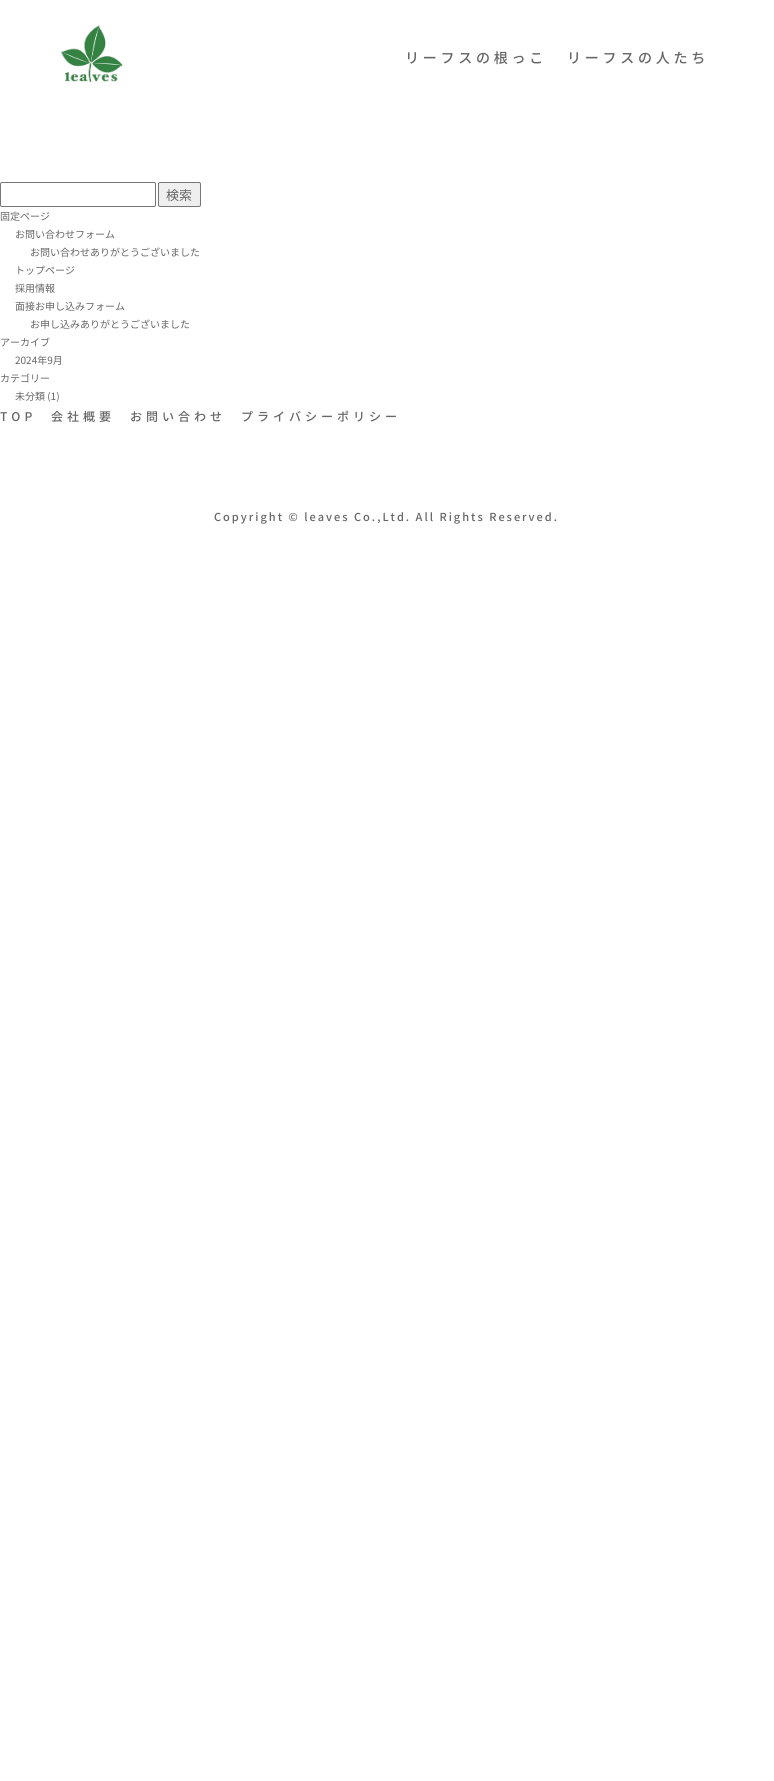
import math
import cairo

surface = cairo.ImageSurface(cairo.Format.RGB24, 774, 1781)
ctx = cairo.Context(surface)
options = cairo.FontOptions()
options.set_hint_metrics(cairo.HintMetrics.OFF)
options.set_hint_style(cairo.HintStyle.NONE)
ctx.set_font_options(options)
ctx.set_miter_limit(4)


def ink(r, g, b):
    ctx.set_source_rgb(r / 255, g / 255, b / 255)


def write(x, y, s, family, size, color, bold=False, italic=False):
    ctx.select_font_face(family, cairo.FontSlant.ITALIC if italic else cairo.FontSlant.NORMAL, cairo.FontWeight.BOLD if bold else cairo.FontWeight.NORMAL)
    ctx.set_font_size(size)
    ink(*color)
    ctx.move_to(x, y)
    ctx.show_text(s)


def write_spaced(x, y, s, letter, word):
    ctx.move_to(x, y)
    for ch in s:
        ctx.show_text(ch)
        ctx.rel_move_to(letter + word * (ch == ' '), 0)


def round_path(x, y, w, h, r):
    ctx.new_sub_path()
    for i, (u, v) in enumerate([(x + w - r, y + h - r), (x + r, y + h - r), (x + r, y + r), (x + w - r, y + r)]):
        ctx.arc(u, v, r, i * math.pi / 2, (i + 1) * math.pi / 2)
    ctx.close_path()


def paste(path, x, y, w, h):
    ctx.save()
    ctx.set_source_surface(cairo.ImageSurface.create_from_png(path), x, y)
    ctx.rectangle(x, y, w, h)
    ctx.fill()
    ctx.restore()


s1 = dict(family="Noto Sans JP", size=13, color=(102, 102, 102))
s2 = dict(family="Noto Sans JP", size=10, color=(102, 102, 102))

ink(255, 255, 255)
ctx.paint()
paste("pic1.png", 61, 25, 62, 57)
ctx.select_font_face("Noto Sans JP Medium")
ctx.set_font_size(14)
ink(102, 102, 102)
write_spaced(405, 63, "リーフスの根っこ", 3.75, 0)
write_spaced(567, 63, "リーフスの人たち", 3.75, 0)
round_path(0.5, 182.5, 155, 24, 1.5)
ink(118, 118, 118)
ctx.set_line_width(1)
ctx.stroke()
ink(239, 239, 239)
round_path(158.5, 182.5, 42, 24, 1.5)
ctx.fill_preserve()
ink(118, 118, 118)
ctx.stroke()
write(166, 200, "検索", **s1)
write(0, 220, "固定ページ", **s2)
write(15, 238, "お問い合わせフォーム", **s2)
write(30, 256, "お問い合わせありがとうございました", **s2)
write(15, 274, "トップページ", **s2)
write(15, 292, "採用情報", **s2)
write(15, 310, "面接お申し込みフォーム", **s2)
write(30, 328, "お申し込みありがとうございました", **s2)
write(0, 346, "アーカイブ", **s2)
write(15, 364, "2024年9月", **s2)
write(0, 382, "カテゴリー", **s2)
write(15, 400, "未分類 (1)", **s2)
ctx.select_font_face("Noto Sans JP Medium")
ctx.set_font_size(12)
write_spaced(0, 421, "TOP", 4, 0)
write_spaced(51, 421, "会社概要", 4, 0)
write_spaced(130, 421, "お問い合わせ", 4, 0)
write_spaced(241, 421, "プライバシーポリシー", 4, 0)
ctx.set_font_size(11)
write_spaced(214, 521, "Copyright © leaves Co.,Ltd. All Rights Reserved.", 2, 0)
surface.write_to_png("screenshot.png")
